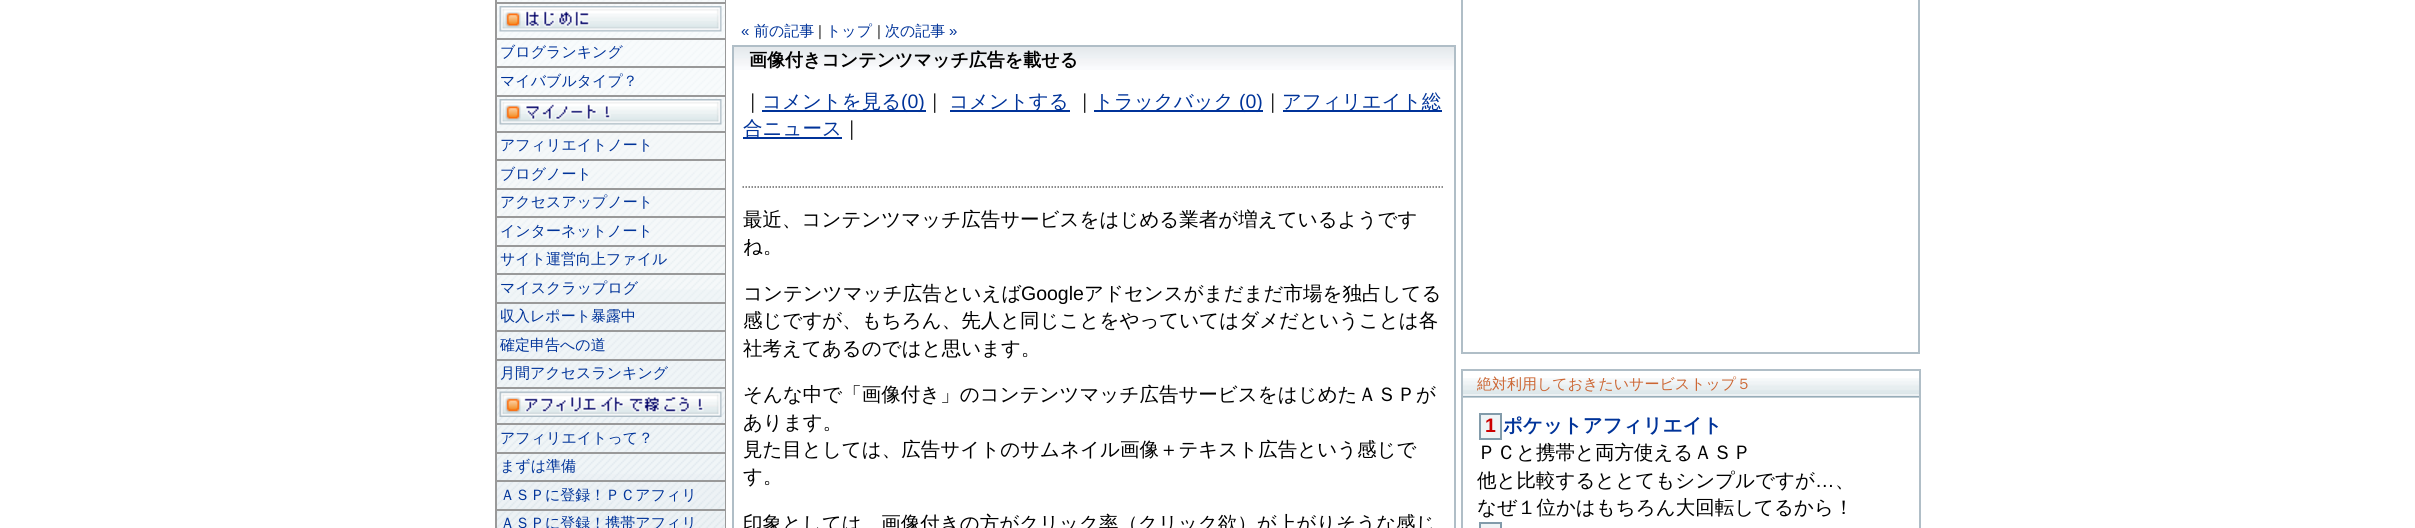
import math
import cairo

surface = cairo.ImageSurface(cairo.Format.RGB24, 2415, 528)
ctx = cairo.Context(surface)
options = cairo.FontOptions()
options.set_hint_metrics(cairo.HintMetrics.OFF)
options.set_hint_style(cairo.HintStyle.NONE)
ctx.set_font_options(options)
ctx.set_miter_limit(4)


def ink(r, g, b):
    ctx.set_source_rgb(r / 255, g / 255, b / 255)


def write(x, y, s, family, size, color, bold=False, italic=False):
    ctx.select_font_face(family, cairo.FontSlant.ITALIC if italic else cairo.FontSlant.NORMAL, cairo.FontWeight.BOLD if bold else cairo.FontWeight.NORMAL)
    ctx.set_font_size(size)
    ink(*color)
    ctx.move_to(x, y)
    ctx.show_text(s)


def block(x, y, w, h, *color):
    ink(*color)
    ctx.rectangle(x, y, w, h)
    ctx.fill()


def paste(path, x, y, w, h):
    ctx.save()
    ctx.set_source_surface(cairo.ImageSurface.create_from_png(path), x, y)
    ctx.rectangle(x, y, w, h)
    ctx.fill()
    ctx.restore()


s1 = dict(family="WenQuanYi Zen Hei Medium", size=15, color=(0, 51, 153))
s2 = dict(family="Liberation Sans", size=15, color=(0, 51, 153))
s3 = dict(family="Liberation Sans", size=15, color=(51, 51, 51))
s4 = dict(family="WenQuanYi Zen Hei", size=18, color=(0, 0, 0), bold=True)
s5 = dict(family="WenQuanYi Zen Hei Medium", size=19.5, color=(0, 0, 0))
s6 = dict(family="WenQuanYi Zen Hei Medium", size=19.5, color=(0, 51, 153))
s7 = dict(family="Liberation Sans", size=19.5, color=(0, 51, 153))
s8 = dict(family="Liberation Sans", size=19.5, color=(0, 0, 0))
s9 = dict(family="WenQuanYi Zen Hei Medium", size=15, color=(204, 102, 51))
s10 = dict(family="Liberation Sans", size=19.5, color=(204, 0, 0), bold=True)
s11 = dict(family="WenQuanYi Zen Hei", size=19.5, color=(0, 51, 153), bold=True)

ink(255, 255, 255)
ctx.paint()
paste("pic1.png", 497, 0, 228, 528)
block(725, 0, 1, 528, 153, 153, 153)
block(495, 0, 2, 528, 153, 153, 153)
block(497, 2, 228, 2, 153, 153, 153)
paste("pic2.png", 499, 6, 223, 26)
block(497, 38, 228, 2, 153, 153, 153)
write(500, 57, "ブログランキング", **s1)
block(497, 66, 228, 2, 153, 153, 153)
write(500, 86, "マイバブルタイプ？", **s1)
block(497, 95, 228, 2, 153, 153, 153)
paste("pic3.png", 499, 99, 223, 26)
block(497, 131, 228, 2, 153, 153, 153)
write(500, 150, "アフィリエイトノート", **s1)
block(497, 159, 228, 2, 153, 153, 153)
write(500, 179, "ブログノート", **s1)
block(497, 188, 228, 2, 153, 153, 153)
write(500, 207, "アクセスアップノート", **s1)
block(497, 216, 228, 2, 153, 153, 153)
write(500, 236, "インターネットノート", **s1)
block(497, 245, 228, 2, 153, 153, 153)
write(500, 264, "サイト運営向上ファイル", **s1)
block(497, 273, 228, 2, 153, 153, 153)
write(500, 293, "マイスクラップログ", **s1)
block(497, 302, 228, 2, 153, 153, 153)
write(500, 321, "収入レポート暴露中", **s1)
block(497, 330, 228, 2, 153, 153, 153)
write(500, 350, "確定申告への道", **s1)
block(497, 359, 228, 2, 153, 153, 153)
write(500, 378, "月間アクセスランキング", **s1)
block(497, 387, 228, 2, 153, 153, 153)
paste("pic4.png", 499, 391, 223, 26)
block(497, 423, 228, 2, 153, 153, 153)
write(500, 443, "アフィリエイトって？", **s1)
block(497, 452, 228, 2, 153, 153, 153)
write(500, 471, "まずは準備", **s1)
block(497, 480, 228, 2, 153, 153, 153)
write(500, 500, "ＡＳＰに登録！ＰＣアフィリ", **s1)
block(497, 509, 228, 2, 153, 153, 153)
write(500, 528, "ＡＳＰに登録！携帯アフィリ", **s1)
write(741, 36, "«", **s2)
write(754, 36, "前の記事", **s1)
write(818, 36, "|", **s3)
write(826, 36, "トップ", **s1)
write(877, 36, "|", **s3)
write(885, 36, "次の記事", **s1)
write(949, 36, "»", **s2)
paste("pic5.png", 734, 47, 720, 23)
block(732, 45, 723, 2, 176, 190, 199)
block(1454, 45, 2, 483, 176, 190, 199)
block(732, 45, 2, 483, 176, 190, 199)
write(749, 66, "画像付きコンテンツマッチ広告を載せる", **s4)
write(743, 108, "｜", **s5)
block(762, 110, 164, 2, 0, 51, 153)
write(762, 108, "コメントを見る", **s6)
write(901, 108, "(0)", **s7)
write(925, 108, "｜", **s5)
block(950, 110, 120, 2, 0, 51, 153)
write(949, 108, "コメントする", **s6)
write(1075, 108, "｜", **s5)
block(1094, 110, 169, 2, 0, 51, 153)
write(1094, 108, "トラックバック", **s6)
write(1239, 108, "(0)", **s7)
write(1263, 108, "｜", **s5)
block(1283, 110, 159, 2, 0, 51, 153)
write(1282, 108, "アフィリエイト総", **s6)
block(743, 137, 99, 2, 0, 51, 153)
write(743, 135, "合ニュース", **s6)
write(842, 135, "｜", **s5)
ctx.new_path()
ctx.move_to(742.5, 187)
ctx.line_to(1444.5, 187)
ink(102, 102, 102)
ctx.set_line_width(1.5)
ctx.set_dash([1.5, 1.5])
ctx.stroke()
write(743, 226, "最近、コンテンツマッチ広告サービスをはじめる業者が増えているようです", **s5)
write(743, 253, "ね。", **s5)
write(743, 300, "コンテンツマッチ広告といえば", **s5)
write(1021, 300, "Google", **s8)
write(1084, 300, "アドセンスがまだまだ市場を独占してる", **s5)
write(743, 327, "感じですが、もちろん、先人と同じことをやっていてはダメだということは各", **s5)
write(743, 355, "社考えてあるのではと思います。", **s5)
write(743, 401, "そんな中で「画像付き」のコンテンツマッチ広告サービスをはじめたＡＳＰが", **s5)
write(743, 429, "あります。", **s5)
write(743, 456, "見た目としては、広告サイトのサムネイル画像＋テキスト広告という感じで", **s5)
write(743, 483, "す。", **s5)
write(743, 530, "印象としては、画像付きの方がクリック率（クリック欲）が上がりそうな感じ", **s5)
ctx.rectangle(1462, -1, 457, 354)
ink(176, 190, 199)
ctx.set_line_width(2)
ctx.set_dash([])
ctx.stroke()
paste("pic6.png", 1463, 378, 456, 20)
block(1461, 369, 459, 2, 176, 190, 199)
block(1919, 369, 2, 159, 176, 190, 199)
block(1461, 369, 2, 159, 176, 190, 199)
write(1477, 389, "絶対利用しておきたいサービストップ５", **s9)
ink(240, 244, 246)
ctx.rectangle(1480, 414, 21, 25)
ctx.fill_preserve()
ink(130, 155, 170)
ctx.stroke()
write(1485, 432, "1", **s10)
write(1503, 432, "ポケットアフィリエイト", **s11)
write(1477, 459, "ＰＣと携帯と両方使えるＡＳＰ", **s5)
write(1477, 487, "他と比較するととてもシンプルですが", **s5)
write(1815, 487, "…", **s8)
write(1835, 487, "、", **s5)
write(1477, 514, "なぜ１位かはもちろん大回転してるから！", **s5)
ink(240, 244, 246)
ctx.rectangle(1480, 523, 21, 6)
ctx.fill_preserve()
ink(130, 155, 170)
ctx.stroke()
surface.write_to_png("screenshot.png")
